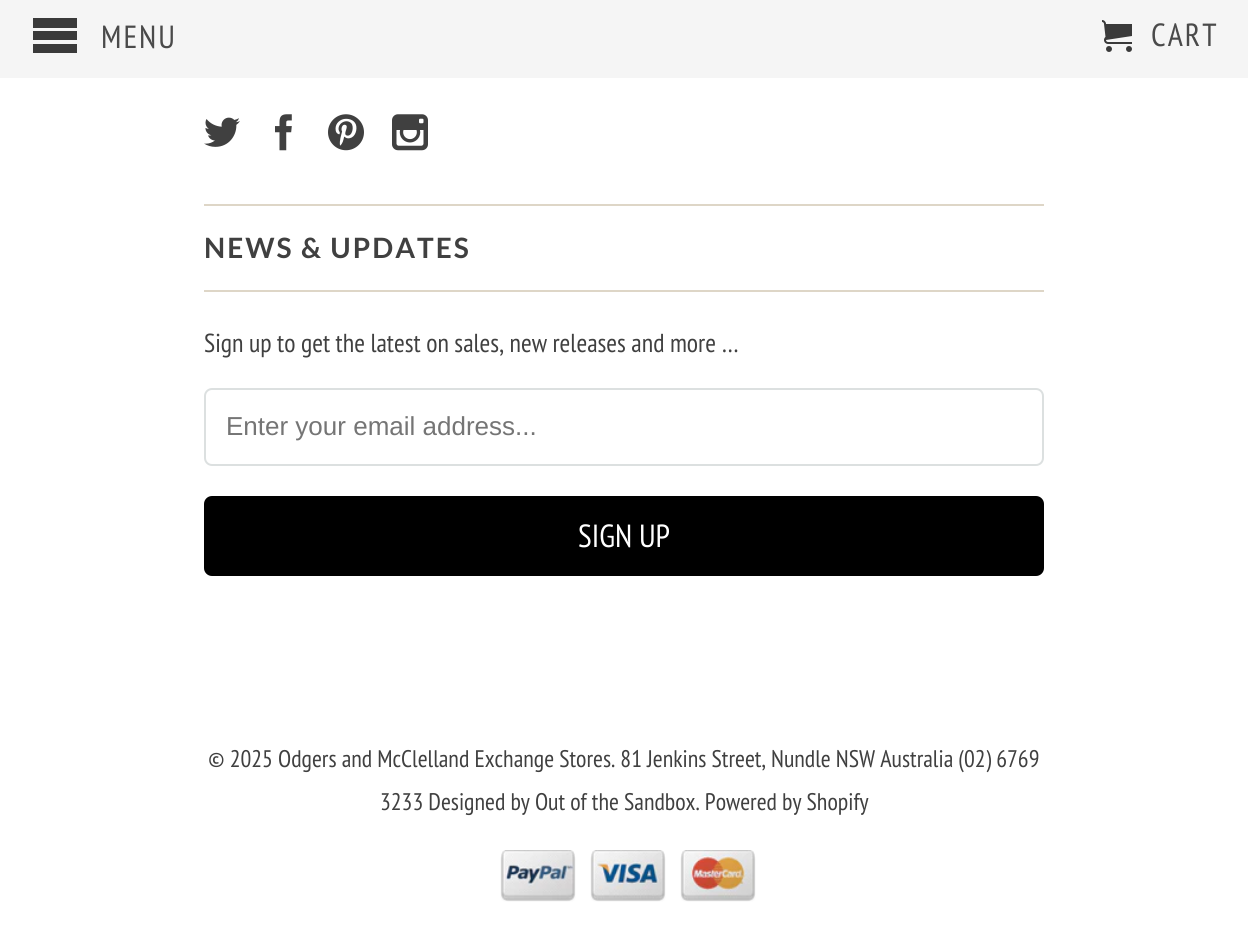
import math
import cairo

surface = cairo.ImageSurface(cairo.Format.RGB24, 1248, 942)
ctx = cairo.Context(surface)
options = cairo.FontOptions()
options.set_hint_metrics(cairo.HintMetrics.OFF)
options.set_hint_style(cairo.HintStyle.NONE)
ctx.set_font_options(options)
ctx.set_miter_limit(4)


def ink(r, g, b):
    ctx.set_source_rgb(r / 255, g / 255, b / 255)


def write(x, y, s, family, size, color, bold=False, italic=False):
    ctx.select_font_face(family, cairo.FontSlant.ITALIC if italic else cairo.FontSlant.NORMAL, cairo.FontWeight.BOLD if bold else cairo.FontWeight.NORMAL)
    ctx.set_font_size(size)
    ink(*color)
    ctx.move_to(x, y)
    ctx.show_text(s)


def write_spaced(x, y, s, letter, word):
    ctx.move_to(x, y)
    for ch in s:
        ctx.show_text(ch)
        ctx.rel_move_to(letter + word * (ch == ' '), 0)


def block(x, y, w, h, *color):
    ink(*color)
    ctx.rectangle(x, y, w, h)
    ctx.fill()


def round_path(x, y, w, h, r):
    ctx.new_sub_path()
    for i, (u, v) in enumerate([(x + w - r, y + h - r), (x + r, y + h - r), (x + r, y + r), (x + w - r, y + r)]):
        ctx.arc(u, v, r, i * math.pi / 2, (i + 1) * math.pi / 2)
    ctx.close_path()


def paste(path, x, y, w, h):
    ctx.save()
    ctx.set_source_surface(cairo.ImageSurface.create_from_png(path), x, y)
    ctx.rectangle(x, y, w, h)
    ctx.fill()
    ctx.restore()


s1 = dict(family="PT Sans Narrow", size=26, color=(64, 64, 64))
s2 = dict(family="Liberation Sans", size=26, color=(117, 117, 117))
s3 = dict(family="PT Sans Narrow", size=32, color=(255, 255, 255))
s4 = dict(family="PT Sans Narrow", size=24, color=(64, 64, 64))

ink(255, 255, 255)
ctx.paint()
ctx.set_source_rgba(0.961, 0.961, 0.961, 0.95)
ctx.rectangle(0, 0, 1248, 80)
ctx.fill()
ctx.set_source_rgba(1, 1, 1, 0.95)
ctx.rectangle(0, 78, 1248, 2)
ctx.fill()
ink(58, 58, 58)
ctx.new_path()
ctx.move_to(33, 18)
ctx.line_to(33, 28)
ctx.line_to(77, 28)
ctx.line_to(77, 18)
ctx.close_path()
ctx.move_to(33, 31)
ctx.line_to(33, 40)
ctx.line_to(77, 40)
ctx.line_to(77, 31)
ctx.close_path()
ctx.move_to(33, 44)
ctx.line_to(33, 53)
ctx.line_to(77, 53)
ctx.line_to(77, 44)
ctx.close_path()
ctx.fill()
ctx.select_font_face("PT Sans Narrow")
ctx.set_font_size(32)
ink(74, 74, 74)
write_spaced(101, 48, "MENU", 2, 0)
paste("pic1.png", 1102, 20, 30, 32)
write_spaced(1151, 46, "CART", 2, 0)
paste("pic2.png", 204, 117, 36, 30)
paste("pic3.png", 275, 114, 17, 37)
paste("pic4.png", 328, 114, 36, 37)
paste("pic5.png", 392, 114, 36, 37)
block(204, 204, 840, 2, 222, 214, 199)
block(204, 290, 840, 2, 222, 214, 199)
ctx.select_font_face("Lato", cairo.FontSlant.NORMAL, cairo.FontWeight.BOLD)
ctx.set_font_size(28)
ink(64, 64, 64)
write_spaced(204, 258, "NEWS & UPDATES", 2, 0)
write(204, 352, "Sign up to get the latest on sales, new releases and more …", **s1)
round_path(205, 389, 838, 76, 7)
ink(220, 224, 224)
ctx.stroke()
write(226, 435, "Enter your email address...", **s2)
ink(0, 0, 0)
round_path(204, 496, 840, 80, 8)
ctx.fill()
ctx.set_source_rgba(0, 0, 0, 0.1)
ctx.new_path()
ctx.move_to(204, 562)
ctx.line_to(204, 568)
ctx.curve_to(204, 572, 208, 576, 212, 576)
ctx.line_to(1036, 576)
ctx.curve_to(1040, 576, 1044, 572, 1044, 568)
ctx.line_to(1044, 562)
ctx.curve_to(1044, 566, 1040, 570, 1036, 570)
ctx.line_to(212, 570)
ctx.curve_to(208, 570, 204, 566, 204, 562)
ctx.close_path()
ctx.fill()
write(578, 547, "SIGN UP", **s3)
write(208, 767, "© 2025 Odgers and McClelland Exchange Stores. 81 Jenkins Street, Nundle NSW Australia (02) 6769", **s4)
write(380, 810, "3233 Designed by Out of the Sandbox. Powered by Shopify", **s4)
paste("pic6.png", 500, 850, 76, 52)
paste("pic7.png", 590, 850, 76, 52)
paste("pic8.png", 680, 850, 76, 52)
surface.write_to_png("screenshot.png")
